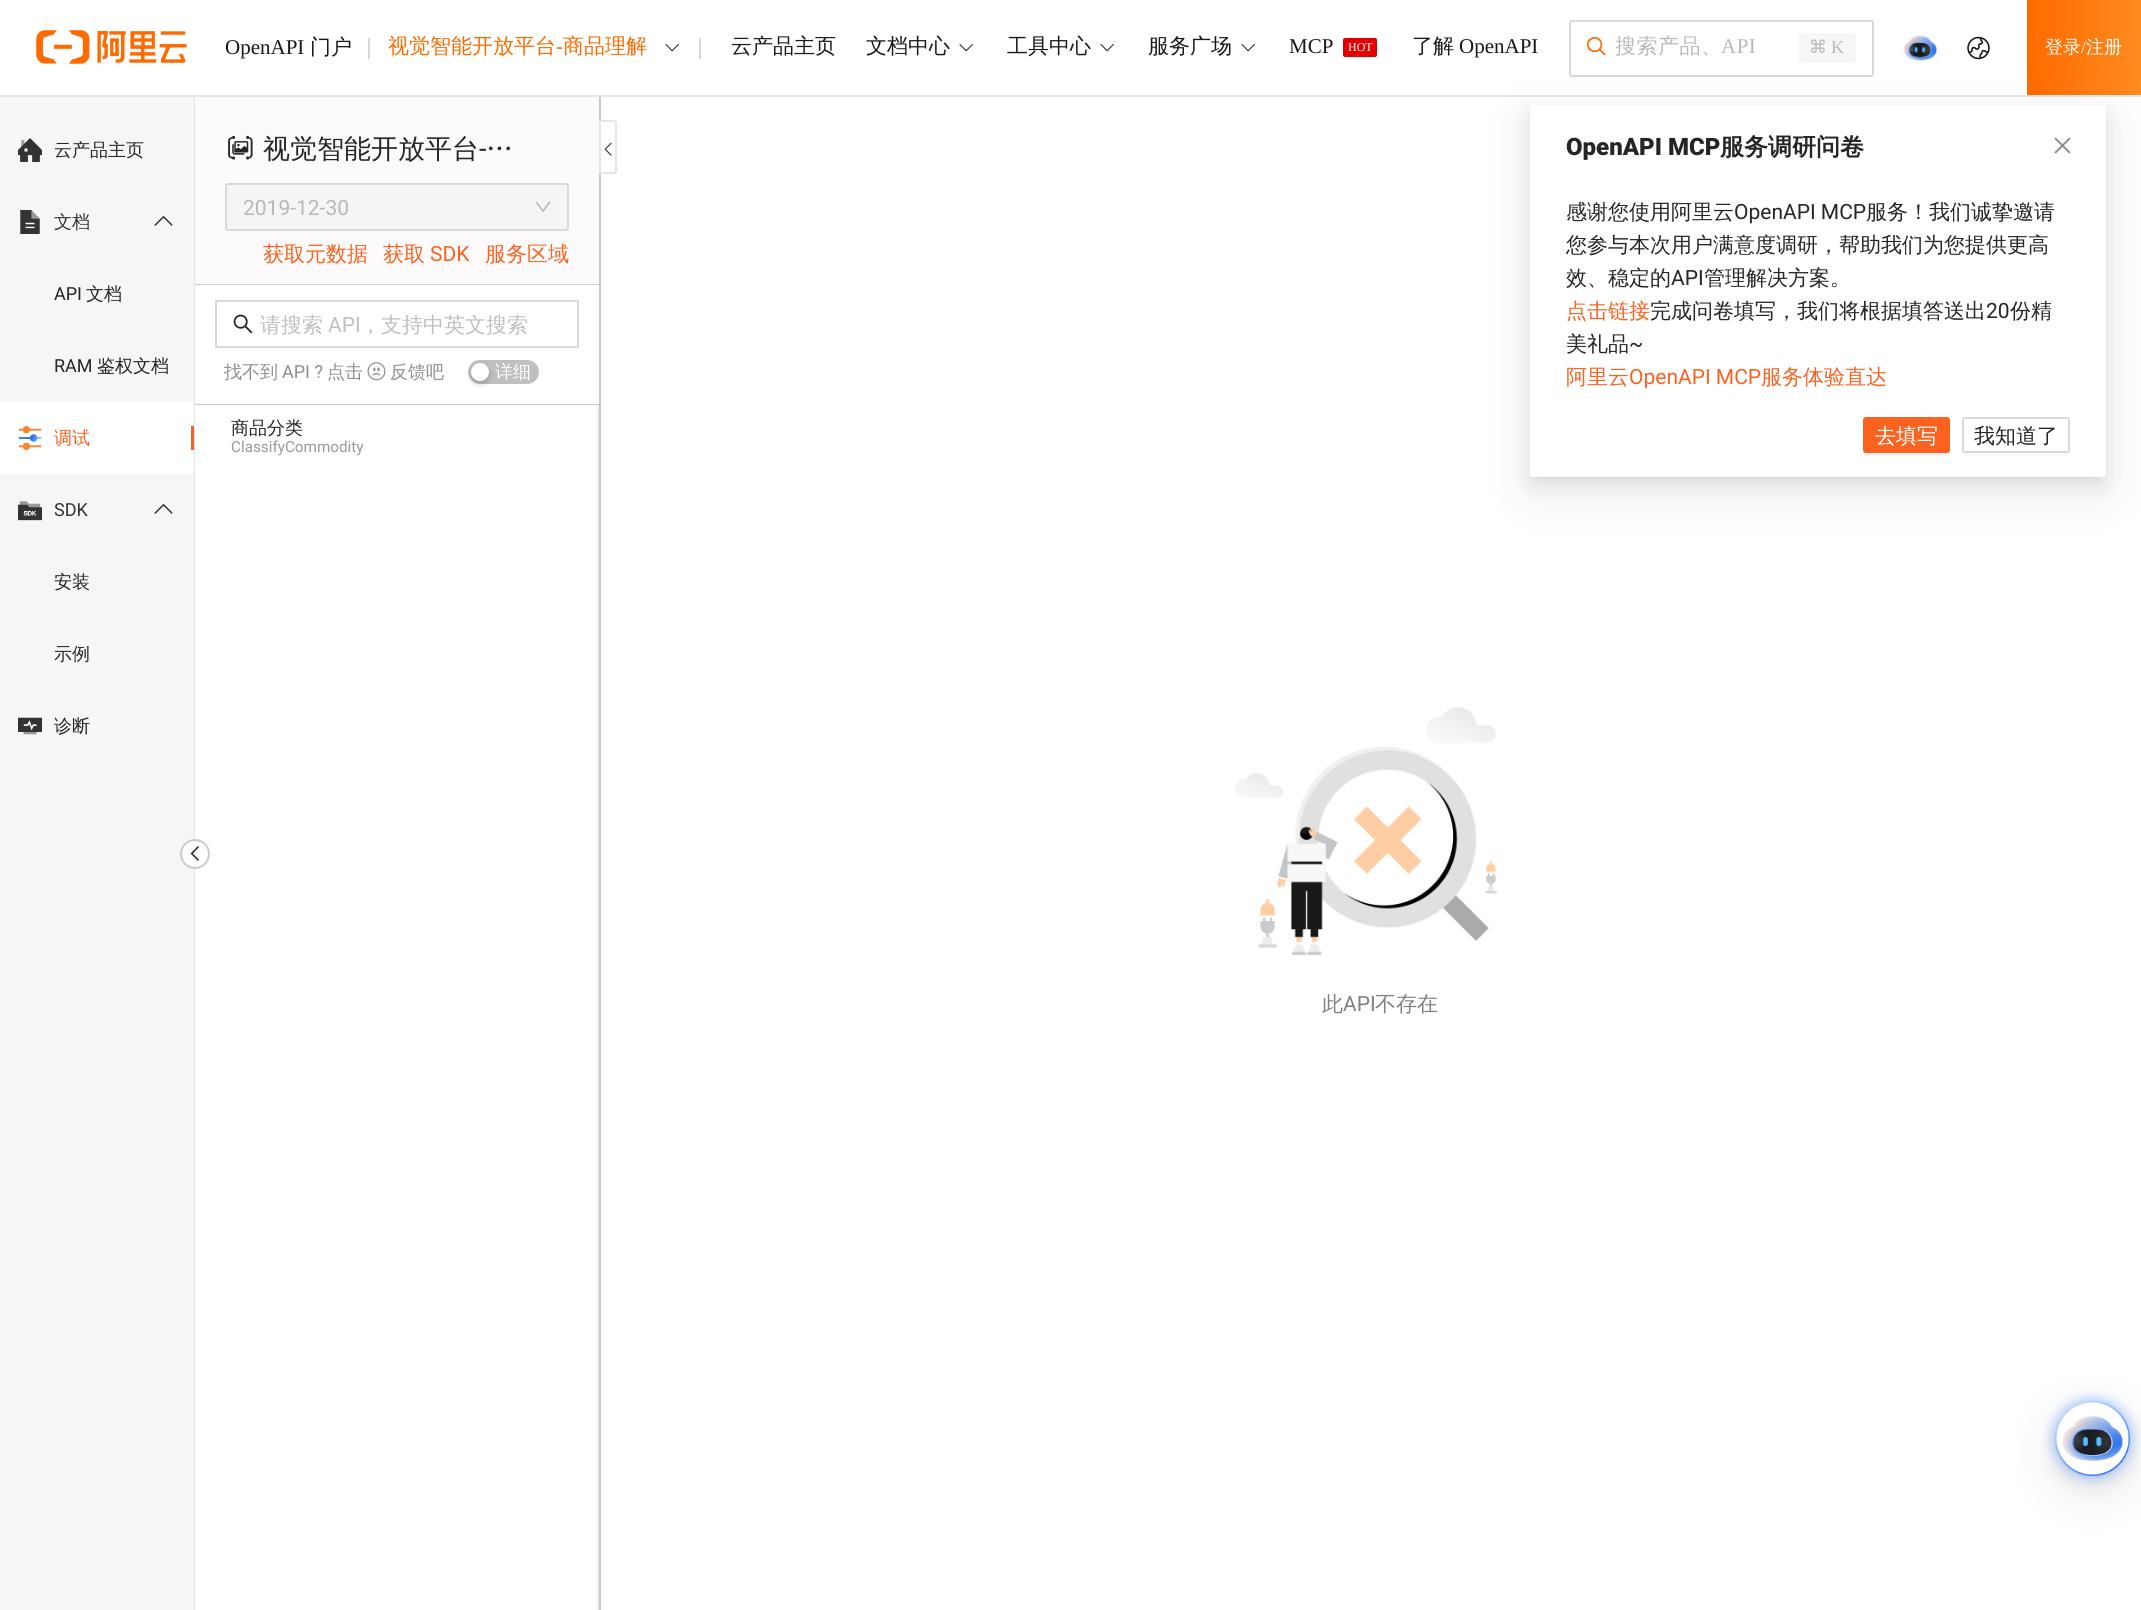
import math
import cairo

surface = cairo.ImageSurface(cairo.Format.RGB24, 2141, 1610)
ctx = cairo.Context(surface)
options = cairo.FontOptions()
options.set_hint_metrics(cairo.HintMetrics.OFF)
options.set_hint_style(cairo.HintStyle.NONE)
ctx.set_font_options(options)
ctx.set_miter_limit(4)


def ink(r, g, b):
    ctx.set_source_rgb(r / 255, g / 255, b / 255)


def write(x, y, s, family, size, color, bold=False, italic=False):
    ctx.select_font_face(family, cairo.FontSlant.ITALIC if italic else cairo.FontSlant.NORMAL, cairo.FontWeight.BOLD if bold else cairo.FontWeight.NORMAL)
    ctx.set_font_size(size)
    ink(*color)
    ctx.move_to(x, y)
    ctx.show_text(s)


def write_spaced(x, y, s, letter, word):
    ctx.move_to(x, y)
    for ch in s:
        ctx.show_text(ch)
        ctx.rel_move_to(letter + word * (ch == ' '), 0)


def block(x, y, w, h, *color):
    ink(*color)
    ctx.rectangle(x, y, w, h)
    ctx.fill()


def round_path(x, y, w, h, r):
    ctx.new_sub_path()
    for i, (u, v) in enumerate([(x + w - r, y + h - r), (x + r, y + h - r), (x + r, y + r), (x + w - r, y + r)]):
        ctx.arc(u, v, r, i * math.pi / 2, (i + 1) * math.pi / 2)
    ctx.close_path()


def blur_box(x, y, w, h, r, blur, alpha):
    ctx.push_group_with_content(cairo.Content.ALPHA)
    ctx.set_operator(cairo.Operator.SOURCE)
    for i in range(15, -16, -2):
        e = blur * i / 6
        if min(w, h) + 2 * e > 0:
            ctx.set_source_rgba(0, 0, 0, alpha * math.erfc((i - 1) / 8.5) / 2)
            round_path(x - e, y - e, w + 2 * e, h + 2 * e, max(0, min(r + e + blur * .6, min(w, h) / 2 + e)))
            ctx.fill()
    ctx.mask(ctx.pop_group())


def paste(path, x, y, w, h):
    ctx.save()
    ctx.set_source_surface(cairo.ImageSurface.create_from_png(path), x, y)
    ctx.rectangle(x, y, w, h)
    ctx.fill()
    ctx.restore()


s1 = dict(family="Liberation Serif", size=21, color=(24, 24, 24))
s2 = dict(family="WenQuanYi Zen Hei Medium", size=21, color=(24, 24, 24))
s3 = dict(family="WenQuanYi Zen Hei Medium", size=21, color=(255, 106, 0))
s4 = dict(family="Liberation Serif", size=21, color=(255, 106, 0))
s5 = dict(family="Liberation Serif", size=12, color=(255, 255, 255))
s6 = dict(family="DejaVu Sans", size=18, color=(184, 184, 184))
s7 = dict(family="Liberation Serif", size=18, color=(184, 184, 184))
s8 = dict(family="WenQuanYi Zen Hei Medium", size=18, color=(255, 255, 255))
s9 = dict(family="Liberation Serif", size=18, color=(255, 255, 255))
s10 = dict(family="WenQuanYi Zen Hei Medium", size=18, color=(37, 37, 37))
s11 = dict(family="WenQuanYi Zen Hei Medium", size=18, color=(51, 51, 51))
s12 = dict(family="Roboto", size=18, color=(37, 37, 37))
s13 = dict(family="WenQuanYi Zen Hei Medium", size=18, color=(251, 98, 32))
s14 = dict(family="Roboto", size=18, color=(51, 51, 51))
s15 = dict(family="WenQuanYi Zen Hei Medium", size=27, color=(37, 37, 37))
s16 = dict(family="Roboto", size=27, color=(37, 37, 37))
s17 = dict(family="Roboto", size=21, color=(184, 184, 184))
s18 = dict(family="WenQuanYi Zen Hei Medium", size=21, color=(251, 98, 32))
s19 = dict(family="Roboto", size=21, color=(251, 98, 32))
s20 = dict(family="WenQuanYi Zen Hei Medium", size=21, color=(191, 191, 191))
s21 = dict(family="Roboto", size=21, color=(191, 191, 191))
s22 = dict(family="WenQuanYi Zen Hei Medium", size=18, color=(142, 142, 142))
s23 = dict(family="Roboto", size=18, color=(142, 142, 142))
s24 = dict(family="Roboto", size=15.25, color=(153, 153, 153))
s25 = dict(family="WenQuanYi Zen Hei Medium", size=21, color=(128, 128, 128))
s26 = dict(family="Roboto", size=21, color=(128, 128, 128))
s27 = dict(family="Roboto Black", size=24, color=(37, 37, 37))
s28 = dict(family="WenQuanYi Zen Hei", size=24, color=(37, 37, 37), bold=True)
s29 = dict(family="WenQuanYi Zen Hei Medium", size=21, color=(37, 37, 37))
s30 = dict(family="Roboto", size=21, color=(37, 37, 37))
s31 = dict(family="WenQuanYi Zen Hei Medium", size=21, color=(255, 255, 255))

ink(255, 255, 255)
ctx.paint()
block(194, 96, 1, 1514, 229, 229, 229)
block(599, 96, 2, 1514, 199, 200, 201)
block(0, 95, 2141, 2, 229, 229, 229)
paste("pic1.png", 36, 30, 151, 34)
write(225, 54, "OpenAPI", **s1)
write(310, 54, "门户", **s2)
block(368, 38, 2, 21, 215, 216, 217)
write(388, 53, "视觉智能开放平台", **s3)
write(556, 53, "-", **s4)
write(563, 53, "商品理解", **s3)
paste("pic2.png", 665, 44, 14, 8)
block(699, 38, 2, 21, 215, 216, 217)
write(731, 53, "云产品主页", **s2)
write(866, 53, "文档中心", **s2)
paste("pic2.png", 959, 44, 14, 8)
write(1007, 53, "工具中心", **s2)
paste("pic2.png", 1100, 44, 14, 8)
write(1148, 53, "服务广场", **s2)
paste("pic2.png", 1241, 44, 14, 8)
write(1289, 53, "MCP", **s1)
ink(224, 0, 0)
round_path(1343, 38, 34, 19, 2)
ctx.fill()
write(1348, 51, "HOT", **s5)
write(1412, 53, "了解", **s2)
write(1459, 53, "OpenAPI", **s1)
round_path(1570, 21, 303, 55, 2)
ink(215, 216, 217)
ctx.stroke()
paste("pic3.png", 1587, 36, 19, 20)
ctx.save()
ctx.rectangle(1616, 33, 141, 27)
ctx.clip()
ctx.select_font_face("WenQuanYi Zen Hei Medium")
ink(184, 184, 184)
write_spaced(1615, 53, "搜索产品、", 0.5, 0)
ctx.restore()
ink(184, 184, 184)
write_spaced(1721, 53, "API", 0.5, 0)
ink(246, 246, 246)
round_path(1799, 33, 57, 30, 3)
ctx.fill()
write(1809, 53, "⌘", **s6)
write(1831, 53, "K", **s7)
paste("pic4.png", 1903, 35, 34, 26)
paste("pic5.png", 1967, 36, 23, 24)
gradient = cairo.LinearGradient(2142, 47, 2027, 47)
gradient.add_color_stop_rgba(0, 1, 0.549, 0.122, 1)
gradient.add_color_stop_rgba(1, 1, 0.416, 0, 1)
ctx.set_source(gradient)
ctx.rectangle(2027, 0, 114, 95)
ctx.fill()
write(2045, 53, "登录", **s8)
write(2081, 53, "/", **s9)
write(2086, 53, "注册", **s8)
block(0, 97, 194, 1513, 246, 246, 246)
paste("pic6.png", 18, 138, 24, 24)
write(54, 156, "云产品主页", **s10)
paste("pic7.png", 20, 210, 20, 24)
write(54, 228, "文档", **s11)
paste("pic8.png", 154, 216, 19, 10)
write(54, 300, "API", **s12)
write(86, 300, "文档", **s10)
write(54, 372, "RAM", **s12)
write(97, 372, "鉴权文档", **s10)
block(0, 402, 194, 72, 255, 255, 255)
paste("pic9.png", 18, 426, 24, 24)
write(54, 444, "调试", **s13)
block(191, 426, 3, 24, 251, 98, 32)
paste("pic10.png", 18, 501, 24, 20)
write(54, 516, "SDK", **s14)
paste("pic8.png", 154, 504, 19, 10)
write(54, 588, "安装", **s10)
write(54, 660, "示例", **s10)
paste("pic11.png", 18, 717, 24, 18)
write(54, 732, "诊断", **s10)
ink(255, 255, 255)
ctx.new_path()
ctx.arc(195, 854, 14, 0, 2 * math.pi)
ctx.fill_preserve()
ink(203, 203, 203)
ctx.stroke()
paste("pic12.png", 190, 846, 9, 15)
block(195, 97, 404, 187, 252, 250, 250)
block(195, 284, 404, 1, 199, 200, 201)
paste("pic13.png", 228, 135, 25, 25)
write(263, 158, "视觉智能开放平台", **s15)
write(479, 158, "-", **s16)
write(486, 158, "…", **s15)
ink(245, 245, 245)
round_path(226, 184, 342, 46, 2)
ctx.fill_preserve()
ink(217, 217, 217)
ctx.stroke()
write(243, 215, "2019-12-30", **s17)
paste("pic14.png", 535, 201, 16, 11)
write(263, 261, "获取元数据", **s18)
write(383, 261, "获取", **s18)
write(430, 261, "SDK", **s19)
write(485, 261, "服务区域", **s18)
ctx.rectangle(216, 301, 362, 46)
ink(217, 217, 217)
ctx.stroke()
paste("pic15.png", 233, 314, 20, 20)
write(260, 332, "请搜索", **s20)
write(328, 332, "API", **s21)
write(360, 332, "，支持中英文搜索", **s20)
write(224, 378, "找不到", **s22)
write(282, 378, "API ?", **s23)
write(327, 378, "点击", **s22)
paste("pic16.png", 367, 362, 19, 19)
write(390, 378, "反馈吧", **s22)
ink(191, 191, 191)
round_path(468, 360, 71, 24, 12)
ctx.fill()
ink(0, 35, 11)
blur_box(471, 366, 18, 18, 9, 3, 0.2)
ink(255, 255, 255)
ctx.arc(480, 372, 9, 0, 2 * math.pi)
ctx.fill()
write(495, 378, "详细", **s8)
block(195, 404, 404, 1, 199, 200, 201)
block(597, 405, 2, 1205, 240, 240, 240)
write(231, 434, "商品分类", **s10)
write(231, 452, "ClassifyCommodity", **s24)
ink(255, 255, 255)
ctx.new_path()
ctx.move_to(600, 121)
ctx.line_to(614, 121)
ctx.curve_to(615, 121, 616, 122, 616, 123)
ctx.line_to(616, 171)
ctx.curve_to(616, 172, 615, 173, 614, 173)
ctx.line_to(600, 173)
ctx.close_path()
ctx.fill_preserve()
ink(229, 229, 229)
ctx.stroke()
paste("pic17.png", 604, 142, 8, 14)
paste("pic18.png", 1234, 707, 263, 249)
write(1322, 1011, "此", **s25)
write(1343, 1011, "API", **s26)
write(1375, 1011, "不存在", **s25)
ink(0, 0, 0)
blur_box(2043, 1403, 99, 99, 49.5, 21, 0.05)
blur_box(2061, 1412, 63, 63, 31.5, 4.5, 0.12)
blur_box(2055, 1410, 75, 75, 37.5, 12, 0.08)
paste("pic19.png", 2044, 1390, 97, 97)
blur_box(1518, 107, 600, 396, 15, 21, 0.05)
blur_box(1530, 114, 576, 372, 3, 12, 0.08)
blur_box(1536, 116, 564, 360, 0, 4.5, 0.12)
ink(255, 255, 255)
round_path(1530, 105, 576, 372, 3)
ctx.fill()
write(1566, 155, "OpenAPI MCP", **s27)
write(1720, 155, "服务调研问卷", **s28)
write(1566, 219, "感谢您使用阿里云", **s29)
write(1734, 219, "OpenAPI MCP", **s30)
write(1866, 219, "服务！我们诚挚邀请", **s29)
write(1566, 252, "您参与本次用户满意度调研，帮助我们为您提供更高", **s29)
write(1566, 285, "效、稳定的", **s29)
write(1671, 285, "API", **s30)
write(1704, 285, "管理解决方案。", **s29)
write(1566, 318, "点击链接", **s18)
write(1650, 318, "完成问卷填写，我们将根据填答送出", **s29)
write(1986, 318, "20", **s30)
write(2010, 318, "份精", **s29)
write(1566, 351, "美礼品", **s29)
write(1629, 351, "~", **s30)
write(1566, 384, "阿里云", **s18)
write(1629, 384, "OpenAPI MCP", **s19)
write(1761, 384, "服务体验直达", **s18)
ink(244, 244, 244)
ctx.new_path()
ctx.move_to(1863, 450)
ctx.line_to(1863, 453)
ctx.curve_to(1863, 455, 1864, 456, 1866, 456)
ctx.line_to(1947, 456)
ctx.curve_to(1949, 456, 1950, 455, 1950, 453)
ctx.line_to(1950, 450)
ctx.curve_to(1950, 452, 1949, 453, 1947, 453)
ctx.line_to(1866, 453)
ctx.curve_to(1864, 453, 1863, 452, 1863, 450)
ctx.close_path()
ctx.fill()
ink(251, 98, 32)
round_path(1864, 418, 85, 34, 2)
ctx.fill_preserve()
ctx.stroke()
write(1875, 443, "去填写", **s31)
ink(251, 251, 251)
ctx.new_path()
ctx.move_to(1962, 450)
ctx.line_to(1962, 453)
ctx.curve_to(1962, 455, 1963, 456, 1965, 456)
ctx.line_to(2067, 456)
ctx.curve_to(2069, 456, 2070, 455, 2070, 453)
ctx.line_to(2070, 450)
ctx.curve_to(2070, 452, 2069, 453, 2067, 453)
ctx.line_to(1965, 453)
ctx.curve_to(1963, 453, 1962, 452, 1962, 450)
ctx.close_path()
ctx.fill()
round_path(1963, 418, 106, 34, 2)
ink(217, 217, 217)
ctx.stroke()
write(1974, 443, "我知道了", **s29)
paste("pic20.png", 2054, 137, 17, 17)
surface.write_to_png("screenshot.png")
